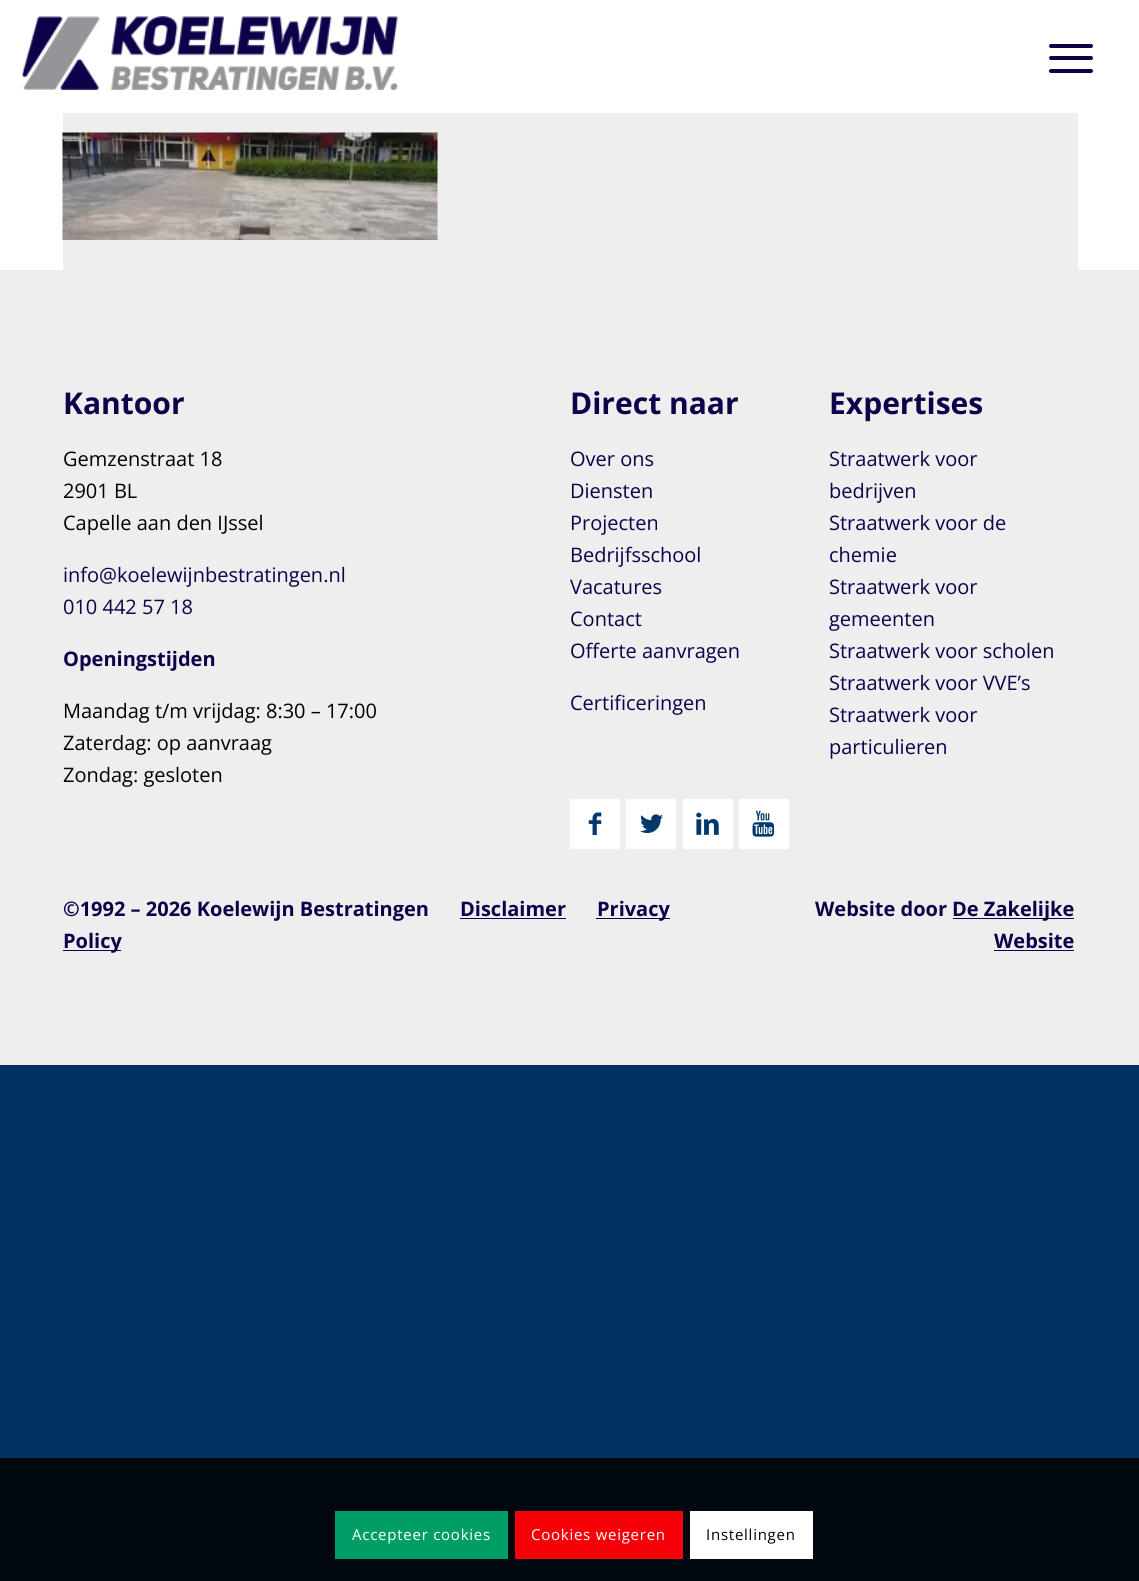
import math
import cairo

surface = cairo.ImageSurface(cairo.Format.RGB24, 1139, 1581)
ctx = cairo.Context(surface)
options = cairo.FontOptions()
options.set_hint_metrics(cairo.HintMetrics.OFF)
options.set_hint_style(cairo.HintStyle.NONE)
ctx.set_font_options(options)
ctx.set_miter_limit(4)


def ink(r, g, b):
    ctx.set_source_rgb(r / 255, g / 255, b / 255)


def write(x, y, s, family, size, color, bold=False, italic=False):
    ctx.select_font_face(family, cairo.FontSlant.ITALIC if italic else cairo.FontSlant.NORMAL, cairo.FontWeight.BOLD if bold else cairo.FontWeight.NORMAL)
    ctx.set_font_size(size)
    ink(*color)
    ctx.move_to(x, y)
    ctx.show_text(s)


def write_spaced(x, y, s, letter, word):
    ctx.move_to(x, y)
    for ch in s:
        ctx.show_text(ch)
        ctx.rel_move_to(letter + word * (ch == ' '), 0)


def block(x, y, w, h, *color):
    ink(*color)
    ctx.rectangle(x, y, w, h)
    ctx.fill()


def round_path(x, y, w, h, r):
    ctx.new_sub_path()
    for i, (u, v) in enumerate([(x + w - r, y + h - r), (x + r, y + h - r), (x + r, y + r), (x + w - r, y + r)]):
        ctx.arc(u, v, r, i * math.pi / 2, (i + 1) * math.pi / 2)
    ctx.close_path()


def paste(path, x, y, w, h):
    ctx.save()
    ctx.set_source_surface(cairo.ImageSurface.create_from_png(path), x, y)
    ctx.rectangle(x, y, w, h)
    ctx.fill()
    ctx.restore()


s1 = dict(family="Open Sans", size=30, color=(13, 1, 74), bold=True)
s2 = dict(family="Open Sans", size=20, color=(0, 0, 0))
s3 = dict(family="Open Sans", size=20, color=(13, 1, 74))
s4 = dict(family="Open Sans", size=20, color=(13, 1, 74), bold=True)

ink(0, 49, 97)
ctx.paint()
block(0, 0, 1139, 270, 255, 255, 255)
paste("pic1.png", 22, 16, 376, 74)
ink(13, 1, 74)
round_path(1049, 56, 44, 4, 2)
ctx.fill()
round_path(1049, 44, 44, 4, 2)
ctx.fill()
round_path(1049, 69, 44, 4, 2)
ctx.fill()
block(63, 113, 1015, 157, 238, 238, 238)
paste("pic2.png", 62, 132, 376, 108)
block(0, 270, 1139, 795, 238, 238, 238)
write(63, 414, "Kantoor", **s1)
write(63, 466, "Gemzenstraat 18", **s2)
write(63, 498, "2901 BL", **s2)
write(63, 530, "Capelle aan den IJssel", **s2)
write(63, 582, "info@koelewijnbestratingen.nl", **s3)
write(63, 614, "010 442 57 18", **s3)
write(63, 666, "Openingstijden", **s4)
write(63, 718, "Maandag t/m vrijdag: 8:30 – 17:00", **s2)
write(63, 750, "Zaterdag: op aanvraag", **s2)
write(63, 782, "Zondag: gesloten", **s2)
write(570, 414, "Direct naar", **s1)
write(570, 466, "Over ons", **s3)
write(570, 498, "Diensten", **s3)
write(570, 530, "Projecten", **s3)
write(570, 562, "Bedrijfsschool", **s3)
write(570, 594, "Vacatures", **s3)
write(570, 626, "Contact", **s3)
write(570, 658, "Offerte aanvragen", **s3)
write(570, 710, "Certificeringen", **s3)
write(829, 414, "Expertises", **s1)
write(829, 466, "Straatwerk voor", **s3)
write(829, 498, "bedrijven", **s3)
write(829, 530, "Straatwerk voor de", **s3)
write(829, 562, "chemie", **s3)
write(829, 594, "Straatwerk voor", **s3)
write(829, 626, "gemeenten", **s3)
write(829, 658, "Straatwerk voor scholen", **s3)
write(829, 690, "Straatwerk voor VVE’s", **s3)
write(829, 722, "Straatwerk voor", **s3)
write(829, 754, "particulieren", **s3)
block(570, 799, 50, 50, 255, 255, 255)
paste("pic3.png", 588, 812, 14, 23)
block(626, 799, 50, 50, 255, 255, 255)
paste("pic4.png", 640, 814, 23, 20)
block(683, 799, 50, 50, 255, 255, 255)
paste("pic5.png", 696, 812, 23, 23)
block(739, 799, 50, 50, 255, 255, 255)
paste("pic6.png", 752, 810, 23, 27)
write(63, 916, "©1992 – 2026 Koelewijn Bestratingen", **s4)
write(460, 916, "Disclaimer", **s4)
block(460, 918, 106, 1, 13, 1, 74)
block(596, 918, 74, 1, 13, 1, 74)
write(597, 916, "Privacy", **s4)
block(63, 950, 58, 1, 13, 1, 74)
write(63, 948, "Policy", **s4)
write(815, 916, "Website door", **s4)
block(953, 918, 121, 1, 13, 1, 74)
write(952, 916, "De Zakelijke", **s4)
write(994, 948, "Website", **s4)
block(994, 950, 80, 1, 13, 1, 74)
block(0, 1458, 1139, 123, 0, 7, 15)
block(335, 1511, 173, 48, 0, 158, 103)
ctx.select_font_face("Open Sans")
ctx.set_font_size(15)
ink(255, 255, 255)
write_spaced(352, 1540, "Accepteer cookies", 0.75, 0)
block(515, 1511, 168, 48, 244, 2, 8)
ink(255, 255, 255)
write_spaced(531, 1540, "Cookies weigeren", 0.75, 0)
block(690, 1511, 123, 48, 255, 255, 255)
ink(0, 0, 0)
write_spaced(706, 1540, "Instellingen", 0.75, 0)
surface.write_to_png("screenshot.png")
